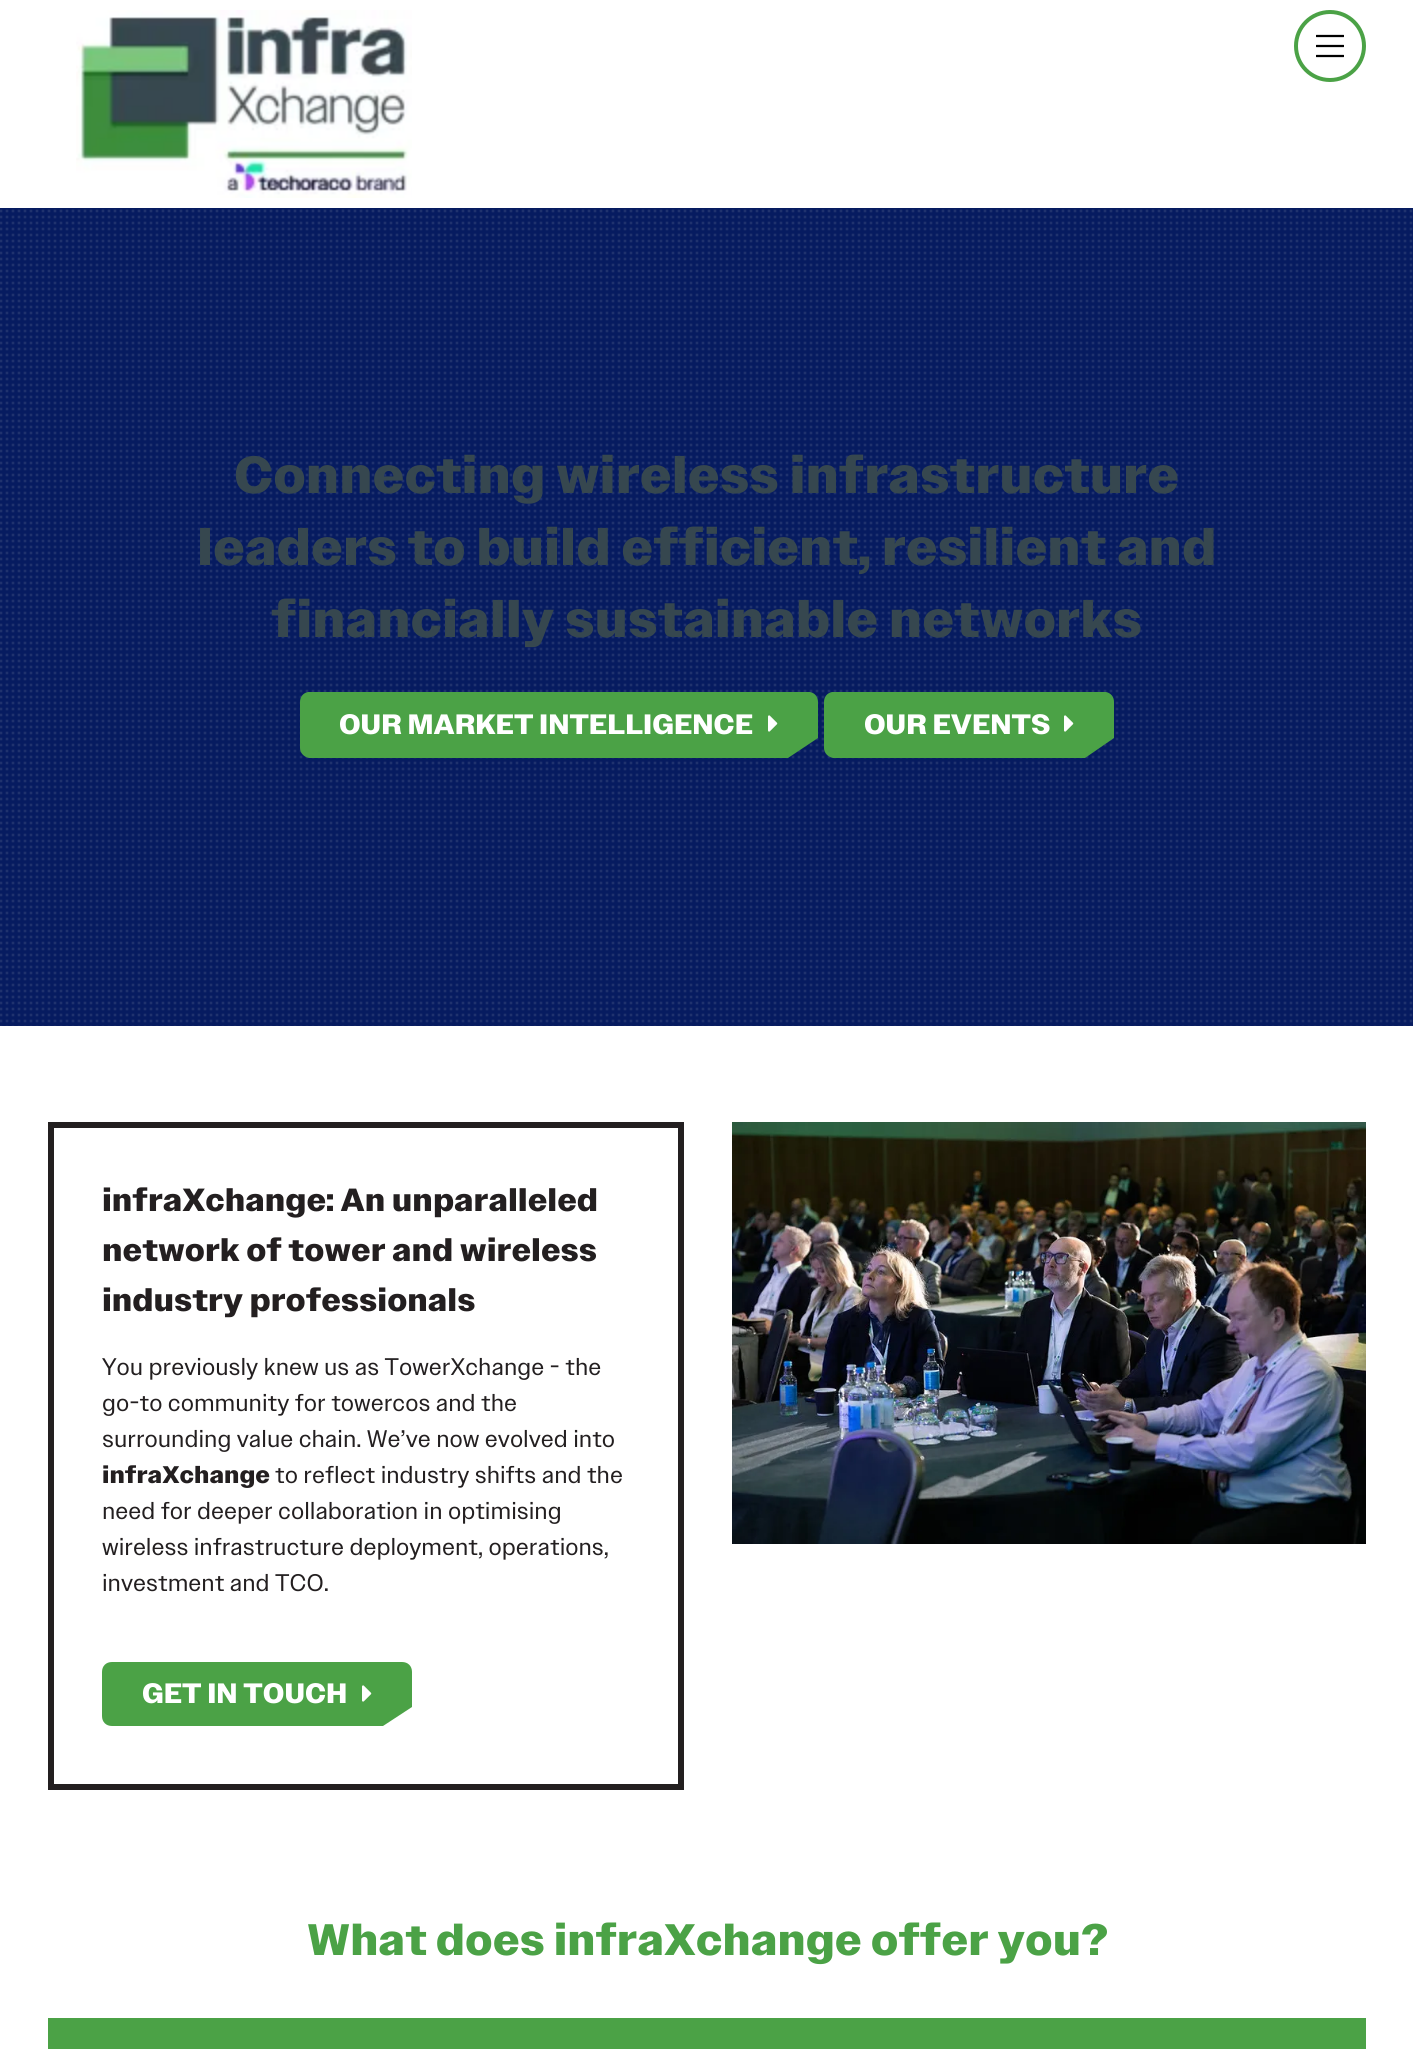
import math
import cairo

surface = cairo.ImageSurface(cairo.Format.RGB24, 1413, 2049)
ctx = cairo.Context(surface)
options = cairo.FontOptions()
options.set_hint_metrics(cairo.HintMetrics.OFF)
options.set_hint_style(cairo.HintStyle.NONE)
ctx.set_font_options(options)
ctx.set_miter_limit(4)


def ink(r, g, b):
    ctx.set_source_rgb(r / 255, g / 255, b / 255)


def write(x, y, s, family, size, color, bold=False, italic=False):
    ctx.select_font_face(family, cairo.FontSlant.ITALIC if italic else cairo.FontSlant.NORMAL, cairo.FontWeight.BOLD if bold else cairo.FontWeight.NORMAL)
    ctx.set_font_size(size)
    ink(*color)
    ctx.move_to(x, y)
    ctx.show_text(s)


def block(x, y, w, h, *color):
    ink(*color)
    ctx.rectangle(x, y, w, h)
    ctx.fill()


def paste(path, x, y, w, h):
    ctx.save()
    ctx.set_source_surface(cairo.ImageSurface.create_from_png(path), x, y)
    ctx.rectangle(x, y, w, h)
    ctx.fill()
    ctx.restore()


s1 = dict(family="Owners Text", size=52, color=(54, 71, 79), bold=True)
s2 = dict(family="Owners Text", size=28, color=(255, 255, 255), bold=True)
s3 = dict(family="Owners Text", size=32, color=(35, 31, 32), bold=True)
s4 = dict(family="Owners Text", size=24, color=(35, 31, 32))
s5 = dict(family="Owners Text", size=24, color=(35, 31, 32), bold=True)
s6 = dict(family="Owners Text", size=44, color=(75, 162, 70), bold=True)

ink(255, 255, 255)
ctx.paint()
paste("pic1.png", 76, 10, 336, 188)
ctx.arc(1330, 46, 34, 0, 2 * math.pi)
ink(75, 162, 70)
ctx.set_line_width(4)
ctx.stroke()
paste("pic2.png", 1316, 34, 28, 24)
block(0, 208, 1413, 818, 6, 27, 96)
paste("pic3.png", 0, 209, 1413, 817)
write(234, 493, "Connecting wireless infrastructure", **s1)
write(197, 565, "leaders to build efficient, resilient and", **s1)
write(271, 637, "financially sustainable networks", **s1)
ink(75, 162, 70)
ctx.new_path()
ctx.move_to(309, 758)
ctx.curve_to(304, 757, 300, 753, 300, 748)
ctx.line_to(300, 702)
ctx.curve_to(300, 697, 303, 693, 308, 692)
ctx.line_to(810, 692)
ctx.curve_to(815, 693, 818, 697, 818, 702)
ctx.line_to(818, 738)
ctx.line_to(788, 758)
ctx.close_path()
ctx.fill()
write(339, 734, "OUR MARKET INTELLIGENCE", **s2)
paste("pic4.png", 768, 715, 10, 17)
ink(75, 162, 70)
ctx.new_path()
ctx.move_to(833, 758)
ctx.curve_to(828, 757, 824, 753, 824, 748)
ctx.line_to(824, 702)
ctx.curve_to(824, 697, 827, 693, 832, 692)
ctx.line_to(1106, 692)
ctx.curve_to(1111, 693, 1114, 697, 1114, 702)
ctx.line_to(1114, 738)
ctx.line_to(1085, 758)
ctx.close_path()
ctx.fill()
write(864, 734, "OUR EVENTS", **s2)
paste("pic4.png", 1064, 715, 10, 17)
ctx.rectangle(51, 1125, 630, 662)
ink(35, 31, 32)
ctx.set_line_width(6)
ctx.stroke()
write(102, 1211, "infraXchange: An unparalleled", **s3)
write(102, 1261, "network of tower and wireless", **s3)
write(102, 1311, "industry professionals", **s3)
write(102, 1375, "You previously knew us as TowerXchange - the", **s4)
write(102, 1411, "go-to community for towercos and the", **s4)
write(102, 1447, "surrounding value chain. We’ve now evolved into", **s4)
write(102, 1483, "infraXchange", **s5)
write(275, 1483, "to reflect industry shifts and the", **s4)
write(102, 1519, "need for deeper collaboration in optimising", **s4)
write(102, 1555, "wireless infrastructure deployment, operations,", **s4)
write(102, 1591, "investment and TCO.", **s4)
ink(75, 162, 70)
ctx.new_path()
ctx.move_to(112, 1662)
ctx.curve_to(106, 1662, 102, 1666, 102, 1672)
ctx.line_to(102, 1716)
ctx.curve_to(102, 1722, 106, 1726, 112, 1726)
ctx.line_to(383, 1726)
ctx.line_to(412, 1707)
ctx.line_to(412, 1672)
ctx.curve_to(412, 1666, 408, 1662, 402, 1662)
ctx.close_path()
ctx.fill()
write(142, 1703, "GET IN TOUCH", **s2)
paste("pic4.png", 362, 1685, 10, 17)
paste("pic5.png", 732, 1122, 634, 422)
write(307, 1955, "What does infraXchange offer you?", **s6)
block(48, 2018, 1318, 31, 75, 162, 70)
surface.write_to_png("screenshot.png")
